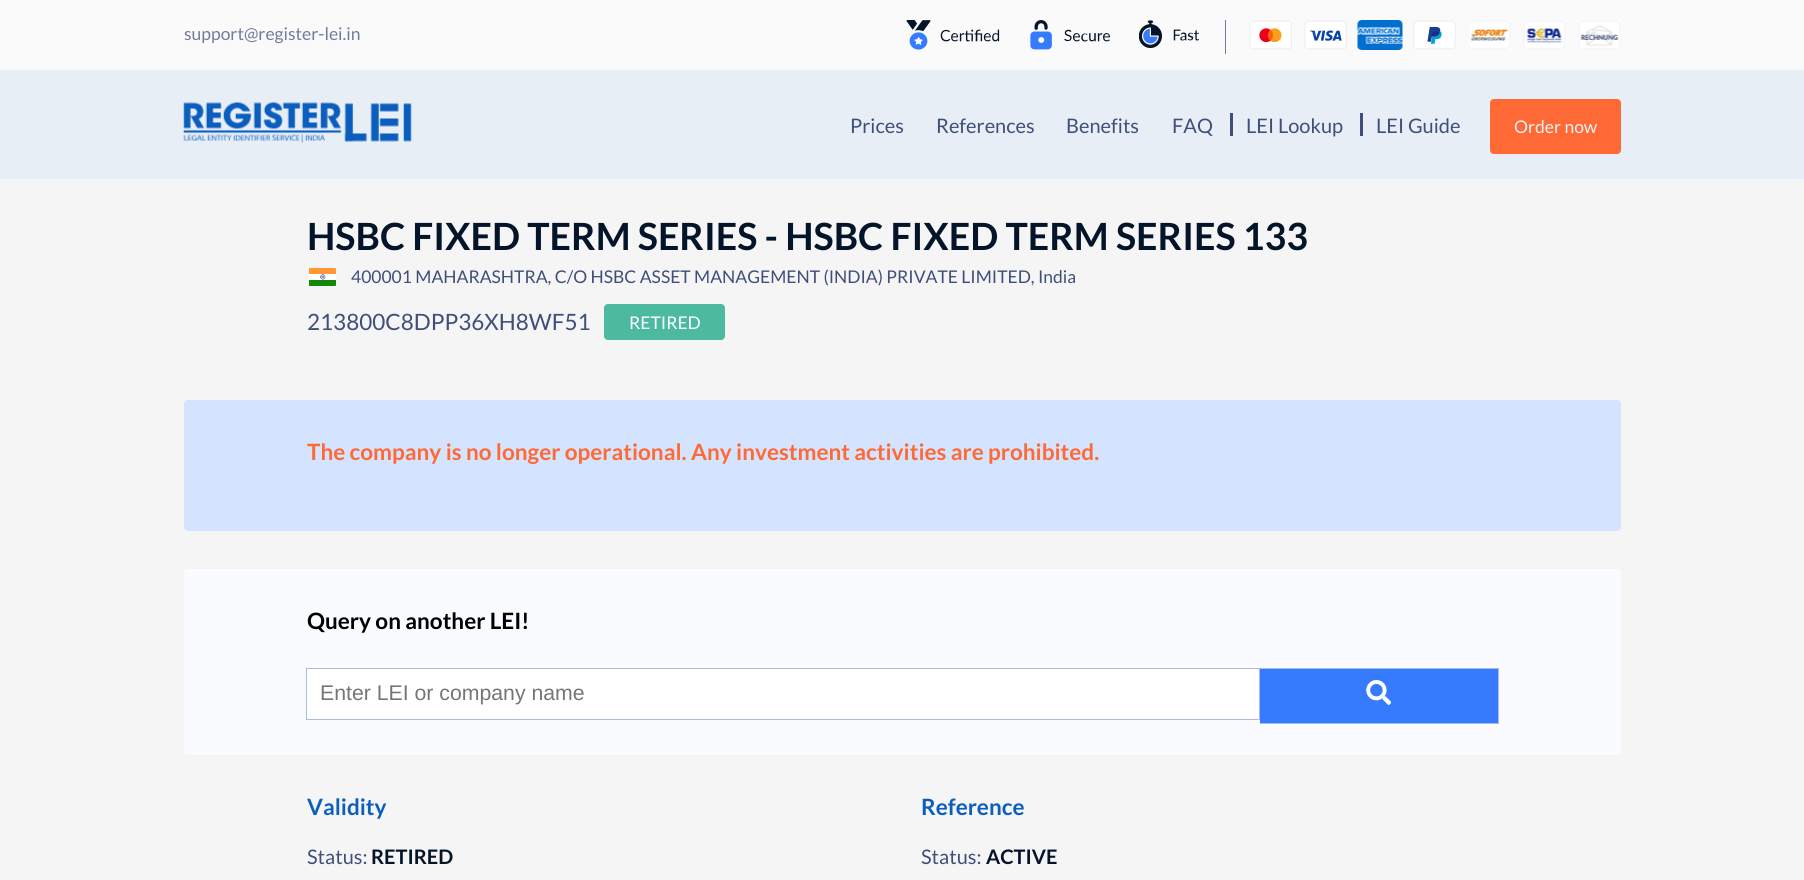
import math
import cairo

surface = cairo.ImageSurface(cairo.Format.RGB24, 1804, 880)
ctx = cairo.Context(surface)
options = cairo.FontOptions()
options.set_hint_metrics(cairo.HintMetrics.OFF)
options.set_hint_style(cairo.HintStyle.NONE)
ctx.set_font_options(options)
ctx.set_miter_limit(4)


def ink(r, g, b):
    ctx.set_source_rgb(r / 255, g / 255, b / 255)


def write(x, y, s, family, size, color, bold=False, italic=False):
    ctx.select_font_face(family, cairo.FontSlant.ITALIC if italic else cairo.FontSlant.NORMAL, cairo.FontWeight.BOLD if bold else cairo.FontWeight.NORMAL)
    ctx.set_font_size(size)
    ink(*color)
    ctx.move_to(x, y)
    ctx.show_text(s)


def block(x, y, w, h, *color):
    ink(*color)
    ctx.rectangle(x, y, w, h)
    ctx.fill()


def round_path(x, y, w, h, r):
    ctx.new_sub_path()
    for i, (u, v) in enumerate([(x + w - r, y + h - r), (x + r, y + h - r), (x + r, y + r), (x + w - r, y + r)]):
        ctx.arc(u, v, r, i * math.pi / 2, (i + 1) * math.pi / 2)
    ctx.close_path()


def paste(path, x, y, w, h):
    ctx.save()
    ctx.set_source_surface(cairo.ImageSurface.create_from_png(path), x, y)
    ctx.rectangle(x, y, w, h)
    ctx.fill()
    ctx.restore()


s1 = dict(family="Lato", size=17.5, color=(114, 123, 153))
s2 = dict(family="Lato", size=20, color=(64, 78, 122))
s3 = dict(family="Lato", size=17.5, color=(245, 245, 245))
s4 = dict(family="Lato", size=37.5, color=(4, 20, 41), bold=True)
s5 = dict(family="Lato", size=17.5, color=(64, 78, 122))
s6 = dict(family="Lato", size=22.5, color=(64, 78, 122))
s7 = dict(family="Lato", size=17.5, color=(255, 255, 255))
s8 = dict(family="Lato", size=22.5, color=(255, 105, 54), bold=True)
s9 = dict(family="Lato", size=22.5, color=(0, 0, 0), bold=True)
s10 = dict(family="Liberation Sans", size=21.25, color=(117, 117, 117))
s11 = dict(family="Lato", size=22.5, color=(12, 94, 190), bold=True)
s12 = dict(family="Lato", size=20, color=(4, 20, 41), bold=True)

ink(245, 245, 245)
ctx.paint()
block(0, 0, 1804, 70, 250, 250, 250)
write(184, 40, "support@register-lei.in", **s1)
block(1225, 20, 1, 34, 114, 123, 153)
paste("pic1.png", 906, 20, 94, 30)
paste("pic2.png", 1030, 20, 80, 30)
paste("pic3.png", 1139, 20, 60, 29)
paste("pic4.png", 1249, 20, 43, 30)
paste("pic5.png", 1304, 20, 43, 30)
paste("pic6.png", 1357, 20, 46, 30)
paste("pic7.png", 1413, 20, 43, 30)
paste("pic8.png", 1470, 20, 41, 30)
paste("pic9.png", 1523, 20, 43, 30)
paste("pic10.png", 1578, 20, 43, 30)
block(0, 70, 1804, 109, 231, 238, 246)
paste("pic11.png", 183, 102, 229, 41)
write(850, 133, "Prices", **s2)
write(936, 133, "References", **s2)
write(1066, 133, "Benefits", **s2)
write(1172, 133, "FAQ", **s2)
write(1246, 133, "LEI Lookup", **s2)
block(1230, 113, 3, 23, 64, 78, 122)
write(1376, 133, "LEI Guide", **s2)
block(1360, 113, 3, 23, 64, 78, 122)
ink(255, 105, 54)
round_path(1490, 99, 131, 55, 4)
ctx.fill()
write(1514, 133, "Order now", **s3)
write(307, 250, "HSBC FIXED TERM SERIES - HSBC FIXED TERM SERIES 133", **s4)
paste("pic12.png", 309, 268, 27, 18)
write(351, 283, "400001 MAHARASHTRA, C/O HSBC ASSET MANAGEMENT (INDIA) PRIVATE LIMITED, India", **s5)
write(307, 330, "213800C8DPP36XH8WF51", **s6)
ink(76, 186, 159)
round_path(604, 304, 121, 36, 4)
ctx.fill()
write(629, 329, "RETIRED", **s7)
ink(212, 228, 254)
round_path(184, 400, 1437, 131, 4)
ctx.fill()
write(307, 460, "The company is no longer operational. Any investment activities are prohibited.", **s8)
ink(249, 251, 255)
round_path(184, 569, 1437, 186, 4)
ctx.fill()
write(307, 629, "Query on another LEI!", **s9)
ink(255, 255, 255)
ctx.rectangle(306.5, 668.5, 953, 51)
ctx.fill_preserve()
ink(170, 185, 230)
ctx.set_line_width(1)
ctx.stroke()
write(320, 700, "Enter LEI or company name", **s10)
block(1260, 669, 238, 54, 54, 123, 253)
block(1260, 668, 239, 1, 170, 185, 230)
block(1498, 668, 1, 56, 170, 185, 230)
block(1260, 723, 239, 1, 170, 185, 230)
paste("pic13.png", 1366, 680, 25, 25)
write(307, 815, "Validity", **s11)
write(307, 864, "Status:", **s2)
write(371, 864, "RETIRED", **s12)
write(921, 815, "Reference", **s11)
write(921, 864, "Status:", **s2)
write(986, 864, "ACTIVE", **s12)
surface.write_to_png("screenshot.png")
